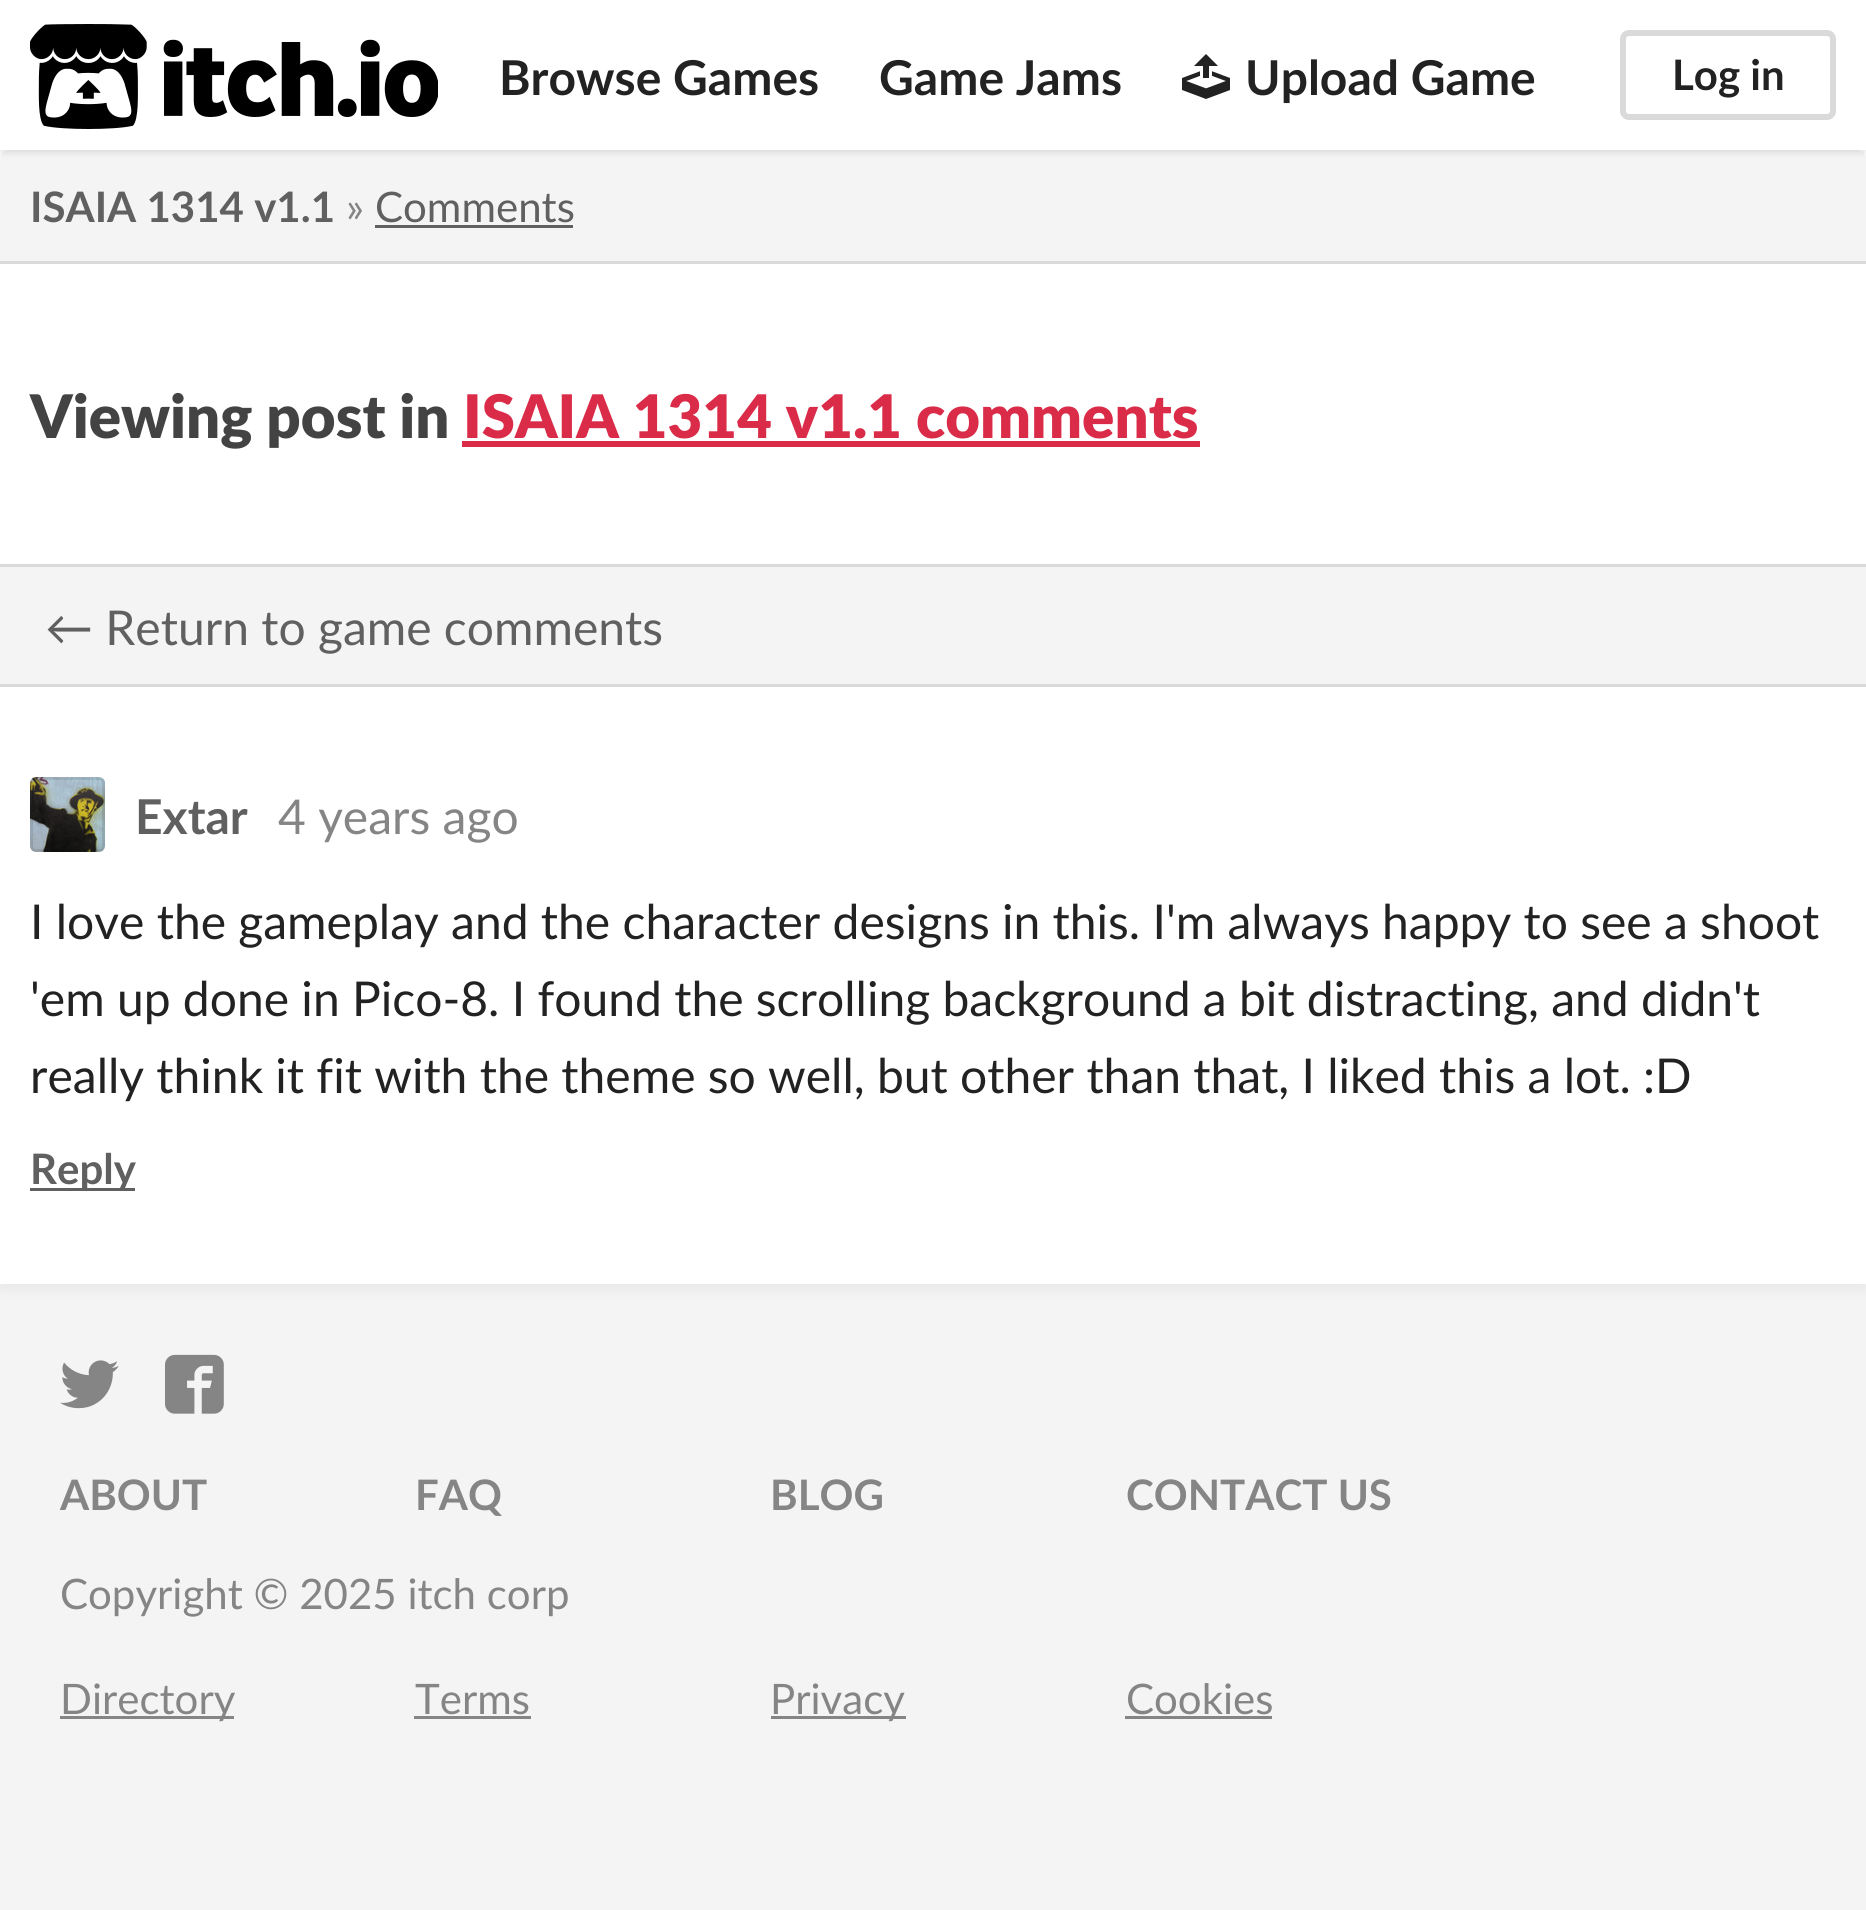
import math
import cairo

surface = cairo.ImageSurface(cairo.Format.RGB24, 1866, 1910)
ctx = cairo.Context(surface)
options = cairo.FontOptions()
options.set_hint_metrics(cairo.HintMetrics.OFF)
options.set_hint_style(cairo.HintStyle.NONE)
ctx.set_font_options(options)
ctx.set_miter_limit(4)


def ink(r, g, b):
    ctx.set_source_rgb(r / 255, g / 255, b / 255)


def write(x, y, s, family, size, color, bold=False, italic=False):
    ctx.select_font_face(family, cairo.FontSlant.ITALIC if italic else cairo.FontSlant.NORMAL, cairo.FontWeight.BOLD if bold else cairo.FontWeight.NORMAL)
    ctx.set_font_size(size)
    ink(*color)
    ctx.move_to(x, y)
    ctx.show_text(s)


def block(x, y, w, h, *color):
    ink(*color)
    ctx.rectangle(x, y, w, h)
    ctx.fill()


def round_path(x, y, w, h, r):
    ctx.new_sub_path()
    for i, (u, v) in enumerate([(x + w - r, y + h - r), (x + r, y + h - r), (x + r, y + r), (x + w - r, y + r)]):
        ctx.arc(u, v, r, i * math.pi / 2, (i + 1) * math.pi / 2)
    ctx.close_path()


def blur_box(x, y, w, h, r, blur, alpha):
    ctx.push_group_with_content(cairo.Content.ALPHA)
    ctx.set_operator(cairo.Operator.SOURCE)
    for i in range(15, -16, -2):
        e = blur * i / 6
        if min(w, h) + 2 * e > 0:
            ctx.set_source_rgba(0, 0, 0, alpha * math.erfc((i - 1) / 8.5) / 2)
            round_path(x - e, y - e, w + 2 * e, h + 2 * e, max(0, min(r + e + blur * .6, min(w, h) / 2 + e)))
            ctx.fill()
    ctx.mask(ctx.pop_group())


def paste(path, x, y, w, h):
    ctx.save()
    ctx.set_source_surface(cairo.ImageSurface.create_from_png(path), x, y)
    ctx.rectangle(x, y, w, h)
    ctx.fill()
    ctx.restore()


s1 = dict(family="Lato", size=48, color=(34, 34, 34), bold=True)
s2 = dict(family="Lato", size=42, color=(34, 34, 34), bold=True)
s3 = dict(family="Lato", size=42, color=(96, 96, 96), bold=True)
s4 = dict(family="Lato", size=42, color=(133, 133, 133))
s5 = dict(family="Lato", size=42, color=(96, 96, 96))
s6 = dict(family="Lato Black", size=60, color=(67, 67, 67))
s7 = dict(family="Lato Black", size=60, color=(218, 44, 73))
s8 = dict(family="Lato", size=48, color=(96, 96, 96))
s9 = dict(family="Lato", size=48, color=(96, 96, 96), bold=True)
s10 = dict(family="Lato", size=48, color=(133, 133, 133))
s11 = dict(family="Lato", size=48, color=(34, 34, 34))
s12 = dict(family="Lato", size=42, color=(133, 133, 133), bold=True)

ink(244, 244, 244)
ctx.paint()
ink(0, 0, 0)
blur_box(0, 156, 1866, 1134, 0, 6, 0.05)
block(0, 150, 1866, 1134, 255, 255, 255)
ink(244, 244, 244)
ctx.new_path()
ctx.move_to(9, 150)
ctx.line_to(1857, 150)
ctx.curve_to(1862, 150, 1866, 154, 1866, 159)
ctx.line_to(1866, 264)
ctx.line_to(0, 264)
ctx.line_to(0, 159)
ctx.curve_to(0, 154, 4, 150, 9, 150)
ctx.close_path()
ctx.fill()
ink(0, 0, 0)
blur_box(0, 3, 1866, 150, 0, 3, 0.1)
block(0, 0, 1866, 150, 255, 255, 255)
paste("pic1.png", 30, 24, 408, 105)
write(499, 95, "Browse Games", **s1)
write(879, 95, "Game Jams", **s1)
paste("pic2.png", 1182, 54, 48, 45)
write(1245, 95, "Upload Game", **s1)
round_path(1623, 33, 210, 84, 6)
ink(218, 218, 218)
ctx.set_line_width(6)
ctx.stroke()
write(1672, 90, "Log in", **s2)
block(0, 261, 1866, 3, 218, 218, 218)
write(30, 222, "ISAIA 1314 v1.1", **s3)
write(346, 222, "»", **s4)
write(375, 222, "Comments", **s5)
block(375, 225, 198, 3, 96, 96, 96)
block(0, 564, 1866, 3, 218, 218, 218)
write(30, 438, "Viewing post in", **s6)
write(463, 438, "ISAIA 1314 v1.1 comments", **s7)
block(462, 441, 738, 6, 218, 44, 73)
block(0, 567, 1866, 117, 244, 244, 244)
block(0, 684, 1866, 3, 218, 218, 218)
write(45, 645, "← Return to game comments", **s8)
paste("pic3.png", 30, 777, 75, 75)
round_path(31.5, 778.5, 72, 72, 4.5)
ctx.set_source_rgba(0, 0, 0, 0.1)
ctx.set_line_width(3)
ctx.stroke()
write(135, 834, "Extar", **s9)
write(278, 834, "4 years ago", **s10)
write(30, 939, "I love the gameplay and the character designs in this. I'm always happy to see a shoot", **s11)
write(30, 1016, "'em up done in Pico-8. I found the scrolling background a bit distracting, and didn't", **s11)
write(30, 1093, "really think it fit with the theme so well, but other than that, I liked this a lot. :D", **s11)
block(30, 1188, 105, 3, 96, 96, 96)
write(30, 1184, "Reply", **s3)
paste("pic4.png", 60, 1360, 59, 49)
paste("pic5.png", 165, 1354, 59, 60)
write(60, 1510, "ABOUT", **s12)
write(415, 1510, "FAQ", **s12)
write(770, 1510, "BLOG", **s12)
write(1126, 1510, "CONTACT US", **s12)
write(60, 1609, "Copyright © 2025 itch corp", **s4)
block(60, 1716, 174, 3, 133, 133, 133)
write(60, 1714, "Directory", **s4)
write(415, 1714, "Terms", **s4)
block(414, 1716, 117, 3, 133, 133, 133)
block(771, 1716, 135, 3, 133, 133, 133)
write(770, 1714, "Privacy", **s4)
write(1126, 1714, "Cookies", **s4)
block(1125, 1716, 147, 3, 133, 133, 133)
surface.write_to_png("screenshot.png")
